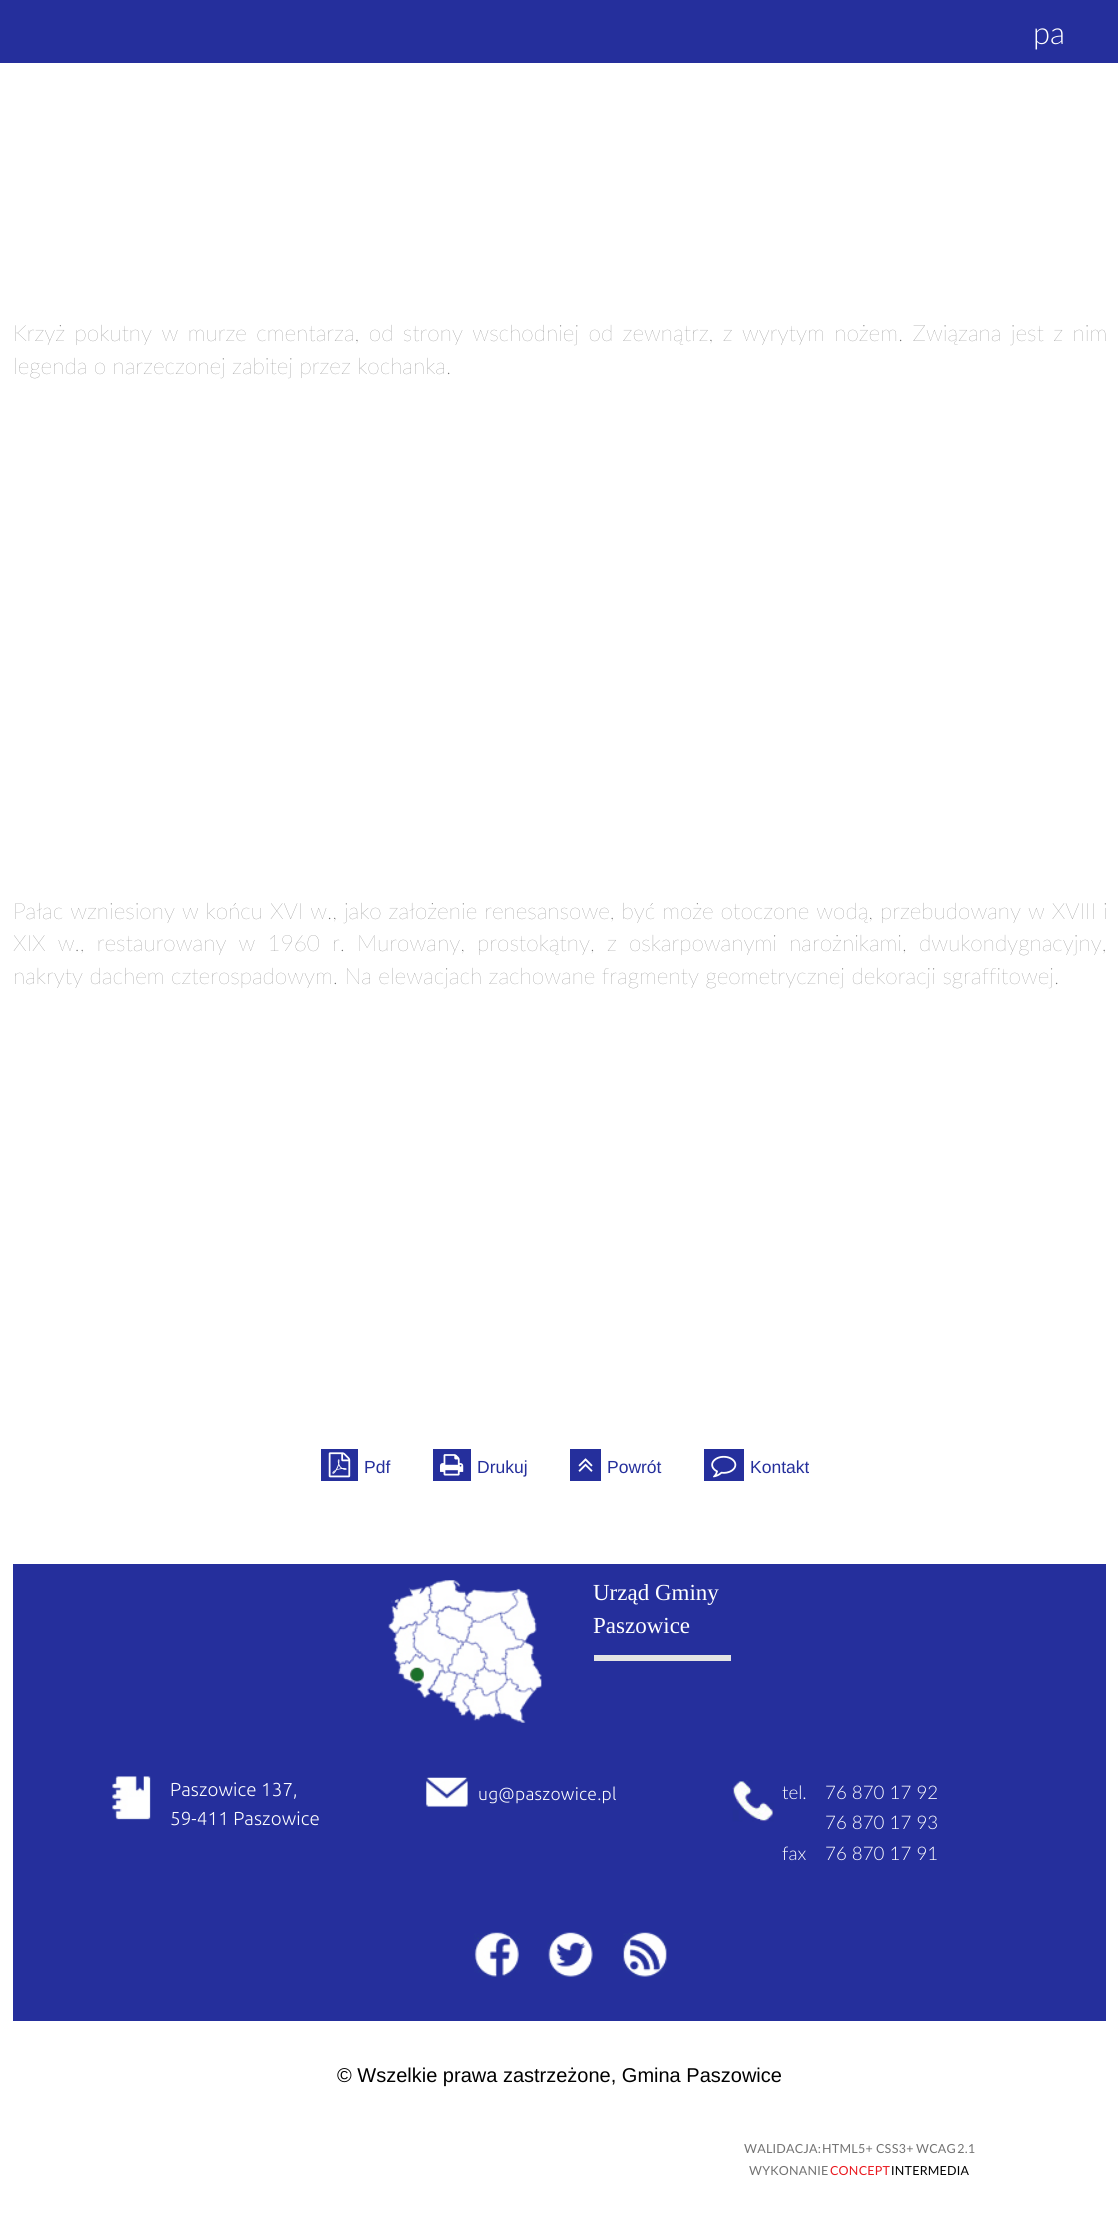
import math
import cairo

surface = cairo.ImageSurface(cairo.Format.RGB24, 1118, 2224)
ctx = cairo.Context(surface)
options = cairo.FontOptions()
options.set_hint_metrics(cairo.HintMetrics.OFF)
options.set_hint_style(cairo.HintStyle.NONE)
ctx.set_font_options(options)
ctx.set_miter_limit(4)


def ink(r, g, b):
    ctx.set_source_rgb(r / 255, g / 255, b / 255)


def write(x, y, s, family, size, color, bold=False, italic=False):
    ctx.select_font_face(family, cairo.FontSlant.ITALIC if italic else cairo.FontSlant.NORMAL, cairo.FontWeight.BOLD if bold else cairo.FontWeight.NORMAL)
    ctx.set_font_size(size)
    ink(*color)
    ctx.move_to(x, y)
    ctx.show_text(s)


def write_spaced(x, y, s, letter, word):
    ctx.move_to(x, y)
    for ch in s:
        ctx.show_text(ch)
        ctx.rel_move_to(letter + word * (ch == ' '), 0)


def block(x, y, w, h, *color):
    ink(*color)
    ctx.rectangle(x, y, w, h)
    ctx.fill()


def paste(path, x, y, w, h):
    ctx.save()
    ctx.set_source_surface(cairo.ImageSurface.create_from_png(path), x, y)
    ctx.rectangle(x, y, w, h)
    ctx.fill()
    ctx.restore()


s1 = dict(family="Lato Light", size=31, color=(255, 255, 255))
s2 = dict(family="Lato ExtraLight", size=22.5, color=(114, 114, 114))
s3 = dict(family="Liberation Sans", size=17.5, color=(37, 47, 156))
s4 = dict(family="Liberation Serif", size=23, color=(255, 255, 255))
s5 = dict(family="Lato Light", size=18.75, color=(255, 255, 255))
s6 = dict(family="Liberation Sans", size=20, color=(0, 0, 0))

ink(255, 255, 255)
ctx.paint()
block(0, 0, 1118, 63, 37, 47, 156)
write(1033, 44, "pa", **s1)
ctx.select_font_face("Lato ExtraLight")
ctx.set_font_size(22.5)
ink(114, 114, 114)
write_spaced(13, 341, "Krzyż pokutny w murze cmentarza, od strony wschodniej od zewnątrz, z wyrytym nożem. Związana jest z nim", 0, 3)
write(13, 374, "legenda o narzeczonej zabitej przez kochanka.", **s2)
write_spaced(13, 919, "Pałac wzniesiony w końcu XVI w., jako założenie renesansowe, być może otoczone wodą, przebudowany w XVIII i", 0, 0.5)
write_spaced(13, 951, "XIX w., restaurowany w 1960 r. Murowany, prostokątny, z oskarpowanymi narożnikami, dwukondygnacyjny,", 0, 5.75)
write(13, 984, "nakryty dachem czterospadowym. Na elewacjach zachowane fragmenty geometrycznej dekoracji sgraffitowej.", **s2)
block(321, 1449, 37, 32, 37, 47, 156)
paste("pic1.png", 328, 1452, 23, 26)
write(364, 1473, "Pdf", **s3)
block(433, 1449, 38, 32, 37, 47, 156)
paste("pic2.png", 440, 1454, 24, 22)
write(477, 1473, "Drukuj", **s3)
block(570, 1449, 31, 32, 37, 47, 156)
paste("pic3.png", 578, 1458, 15, 14)
write(607, 1473, "Powrót", **s3)
block(704, 1449, 40, 32, 37, 47, 156)
paste("pic4.png", 711, 1455, 26, 23)
write(750, 1473, "Kontakt", **s3)
block(13, 1564, 1093, 457, 37, 47, 156)
paste("pic5.png", 388, 1580, 154, 143)
block(594, 1655, 137, 6, 227, 227, 227)
write(593, 1600, "Urząd Gminy", **s4)
write(593, 1633, "Paszowice", **s4)
paste("pic6.png", 112, 1776, 39, 44)
ctx.select_font_face("Ubuntu Light")
ctx.set_font_size(18.75)
write_spaced(170, 1796, "Paszowice 137,", 0.1, 0)
write_spaced(170, 1825, "59-411 Paszowice", 0.1, 0)
paste("pic7.png", 425, 1777, 44, 30)
ctx.set_font_size(17.5)
write_spaced(478, 1800, "ug@paszowice.pl", 0.25, 0)
paste("pic8.png", 732, 1780, 42, 42)
write(782, 1799, "tel.", **s5)
write(825, 1799, "76 870 17 92", **s5)
write(825, 1829, "76 870 17 93", **s5)
write(782, 1860, "fax", **s5)
write(825, 1860, "76 870 17 91", **s5)
paste("pic9.png", 474, 1932, 46, 46)
paste("pic10.png", 547, 1932, 46, 46)
paste("pic11.png", 623, 1932, 44, 45)
write(337, 2082, "© Wszelkie prawa zastrzeżone, Gmina Paszowice", **s6)
ctx.select_font_face("Lato")
ctx.set_font_size(12.5)
ink(114, 114, 114)
write_spaced(744, 2153, "WALIDACJA:", 0.25, 0)
write_spaced(822, 2153, "HTML5+", 0.25, 0)
write_spaced(876, 2153, "CSS3+", 0.25, 0)
write_spaced(916, 2153, "WCAG 2.1", 0.25, -2)
write_spaced(749, 2175, "WYKONANIE", 0.25, 0)
ink(234, 25, 32)
write_spaced(830, 2175, "CONCEPT", 0.25, 0)
ink(0, 0, 0)
write_spaced(891, 2175, "INTERMEDIA", 0.25, 0)
surface.write_to_png("screenshot.png")
